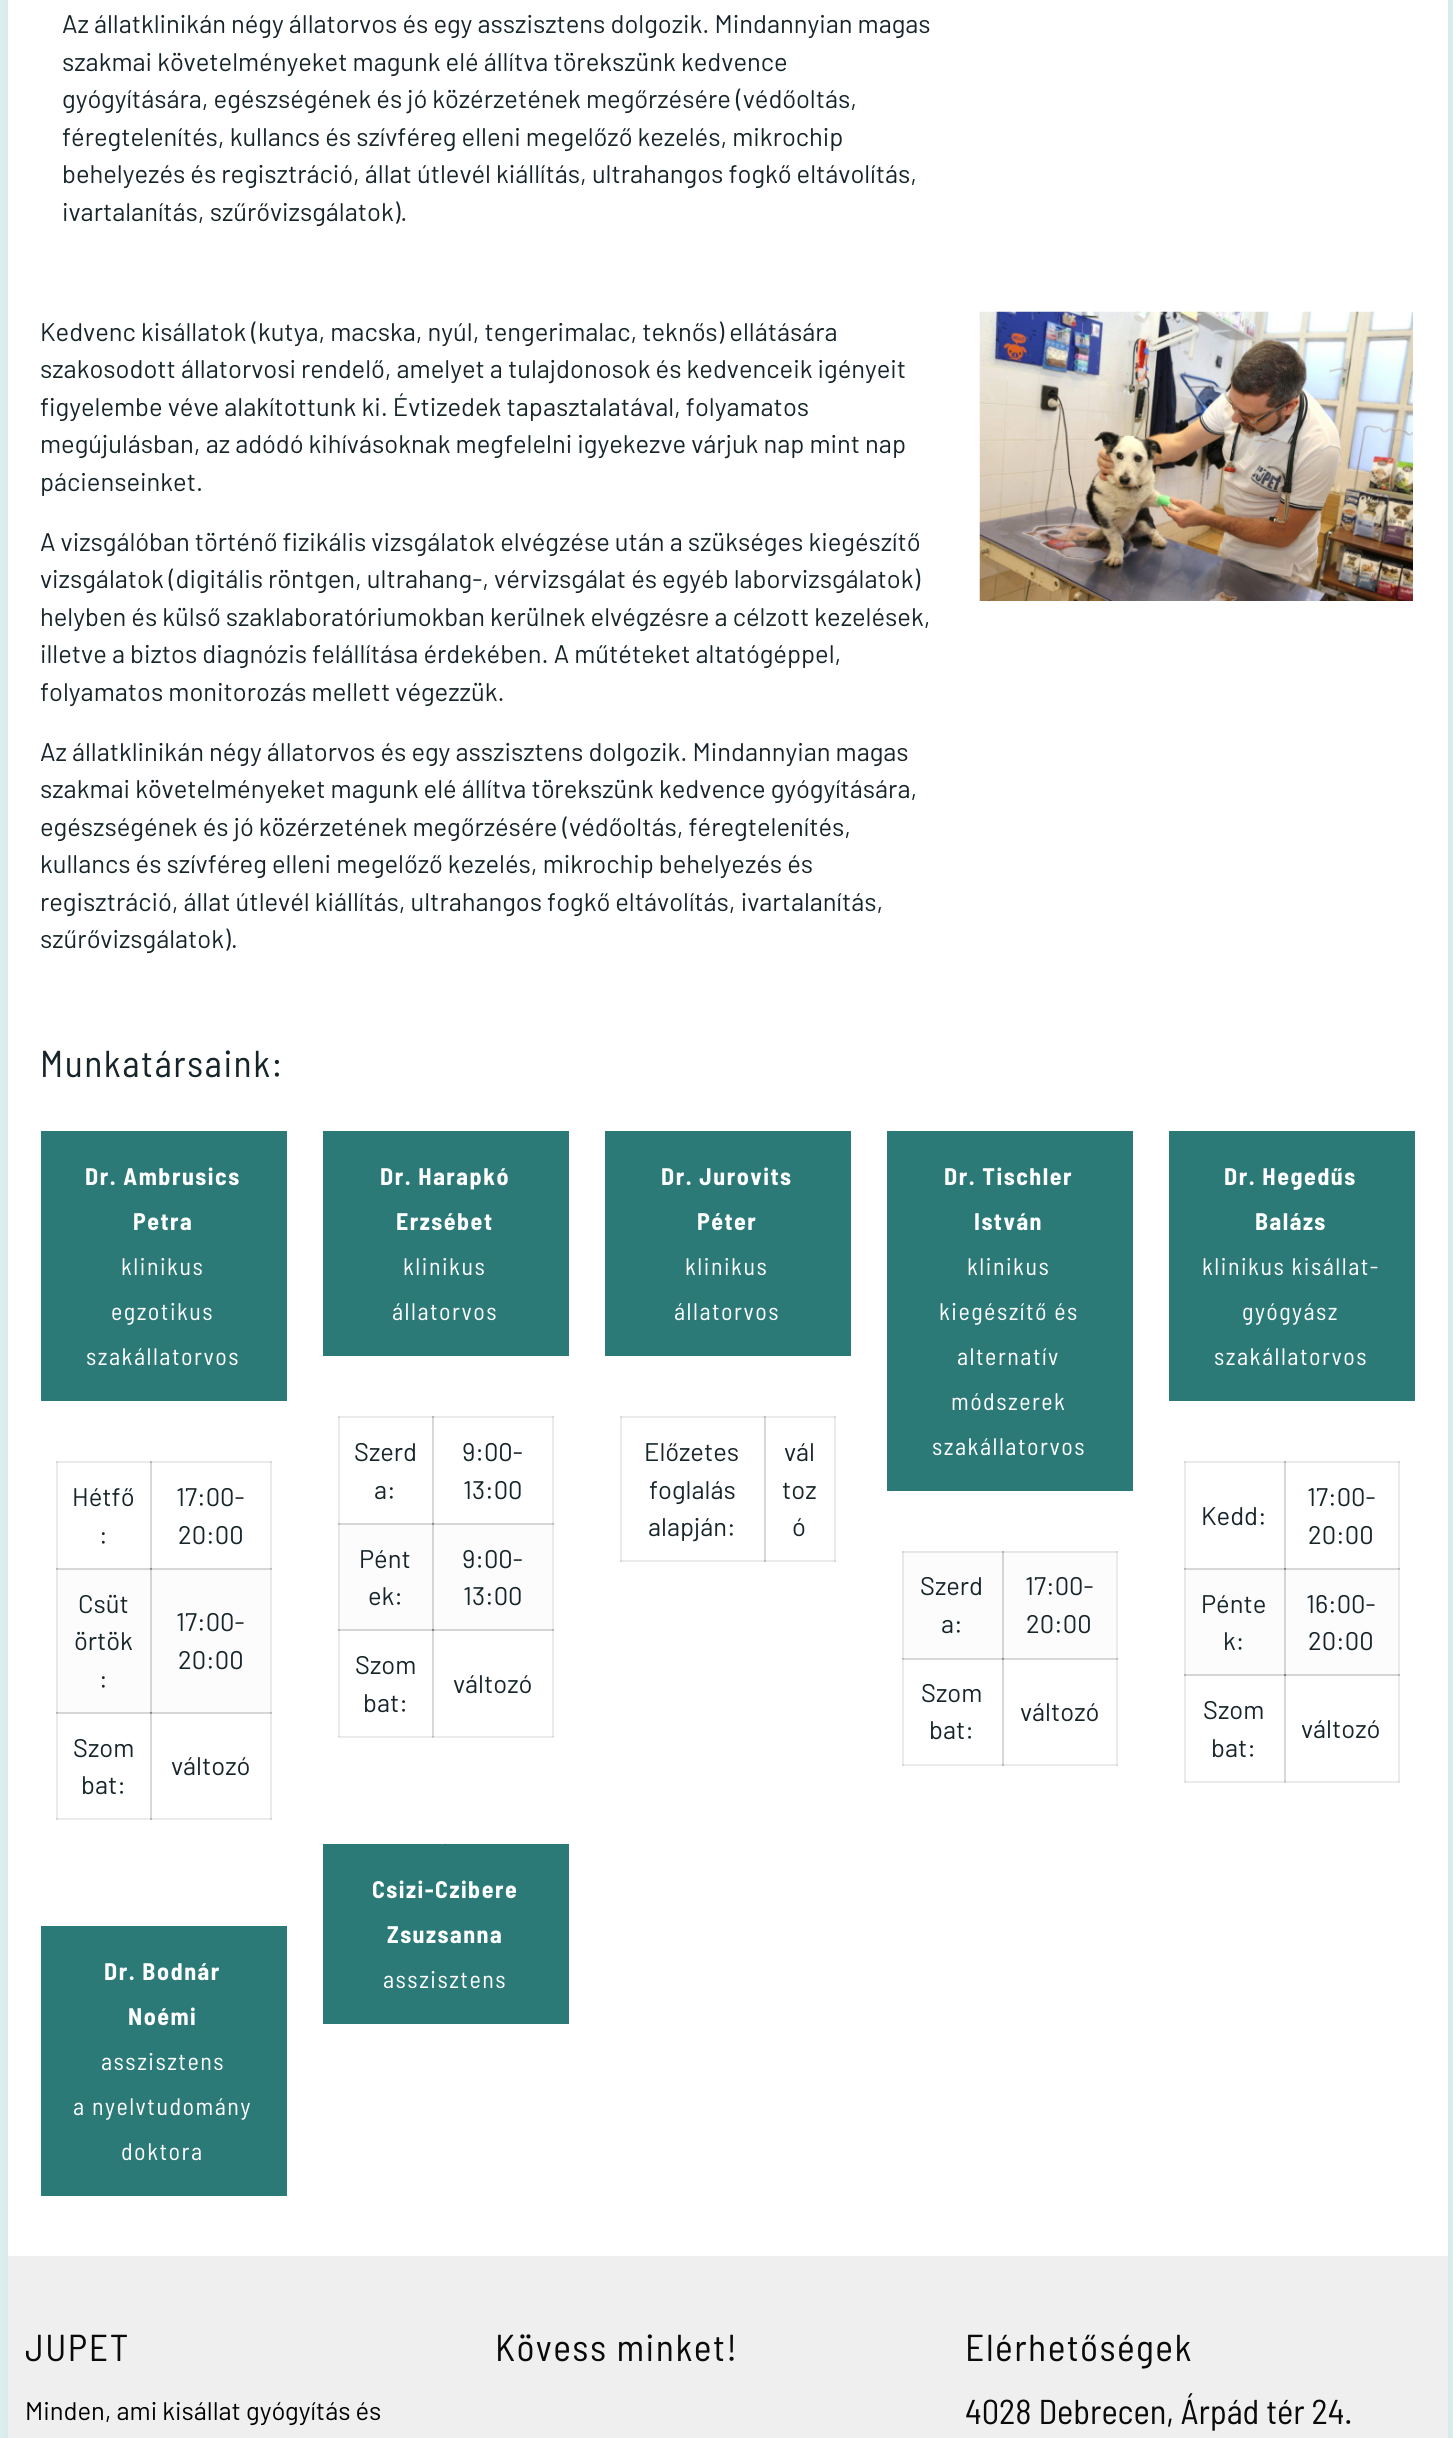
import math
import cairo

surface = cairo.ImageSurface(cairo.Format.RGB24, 1453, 2438)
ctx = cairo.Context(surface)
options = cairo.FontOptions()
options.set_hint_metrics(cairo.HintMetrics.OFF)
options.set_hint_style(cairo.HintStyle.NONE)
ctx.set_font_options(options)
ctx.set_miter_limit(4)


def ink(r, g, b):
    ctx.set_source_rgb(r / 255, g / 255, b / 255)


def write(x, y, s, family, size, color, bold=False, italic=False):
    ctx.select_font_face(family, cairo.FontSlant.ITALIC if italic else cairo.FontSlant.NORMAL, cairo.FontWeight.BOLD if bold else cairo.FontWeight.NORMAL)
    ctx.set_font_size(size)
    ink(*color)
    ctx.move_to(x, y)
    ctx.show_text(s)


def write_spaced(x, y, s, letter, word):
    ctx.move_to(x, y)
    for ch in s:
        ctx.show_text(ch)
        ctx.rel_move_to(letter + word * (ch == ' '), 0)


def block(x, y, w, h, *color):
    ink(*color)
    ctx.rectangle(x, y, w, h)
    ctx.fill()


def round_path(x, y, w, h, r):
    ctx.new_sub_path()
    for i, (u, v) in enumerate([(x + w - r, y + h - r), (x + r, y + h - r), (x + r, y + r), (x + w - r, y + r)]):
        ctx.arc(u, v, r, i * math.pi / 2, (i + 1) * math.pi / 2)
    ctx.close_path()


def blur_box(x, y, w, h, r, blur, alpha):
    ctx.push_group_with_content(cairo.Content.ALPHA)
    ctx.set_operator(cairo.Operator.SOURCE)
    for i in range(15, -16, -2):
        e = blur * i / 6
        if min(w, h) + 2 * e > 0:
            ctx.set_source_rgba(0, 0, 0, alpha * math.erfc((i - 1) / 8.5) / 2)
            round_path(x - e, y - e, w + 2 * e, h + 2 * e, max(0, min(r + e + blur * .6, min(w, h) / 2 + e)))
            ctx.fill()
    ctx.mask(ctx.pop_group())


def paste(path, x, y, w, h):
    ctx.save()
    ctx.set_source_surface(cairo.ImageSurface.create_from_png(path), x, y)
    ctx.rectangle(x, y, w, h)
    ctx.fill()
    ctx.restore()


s1 = dict(family="Barlow", size=25.5, color=(23, 37, 42))
s2 = dict(family="Barlow", size=25.5, color=(0, 0, 0))
s3 = dict(family="Barlow Semi Condensed", size=34.5, color=(10, 10, 10))

ink(222, 242, 241)
ctx.paint()
ink(0, 0, 0)
blur_box(8, -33, 1440, 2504, 0, 11, 0.06)
block(8, 0, 1440, 2256, 255, 255, 255)
block(1184, 1461, 2, 108, 235, 235, 235)
block(1184, 1461, 102, 2, 235, 235, 235)
block(1184, 1461, 2, 2, 216, 216, 216)
block(1284, 1461, 2, 108, 216, 216, 216)
block(1398, 1461, 2, 215, 235, 235, 235)
block(1184, 1568, 216, 1, 216, 216, 216)
block(1184, 1568, 2, 1, 183, 183, 183)
block(1284, 1568, 2, 1, 132, 132, 132)
block(1398, 1569, 2, 1, 199, 199, 199)
block(1398, 1568, 2, 1, 183, 183, 183)
block(1184, 1674, 2, 108, 235, 235, 235)
block(1184, 1781, 102, 2, 235, 235, 235)
block(1184, 1781, 2, 1, 216, 216, 216)
block(1284, 1674, 2, 108, 216, 216, 216)
block(1284, 1781, 116, 2, 235, 235, 235)
block(1284, 1782, 2, 1, 216, 216, 216)
block(1284, 1781, 2, 1, 183, 183, 183)
block(1398, 1674, 2, 108, 235, 235, 235)
block(1398, 1781, 2, 1, 216, 216, 216)
block(1398, 1674, 2, 2, 183, 183, 183)
block(1116, 1551, 2, 108, 235, 235, 235)
block(1116, 1551, 2, 2, 216, 216, 216)
block(902, 1658, 2, 108, 235, 235, 235)
block(902, 1764, 102, 2, 235, 235, 235)
block(902, 1764, 2, 2, 216, 216, 216)
block(902, 1658, 102, 2, 216, 216, 216)
block(902, 1659, 2, 1, 199, 199, 199)
block(902, 1658, 2, 1, 183, 183, 183)
block(1002, 1658, 2, 108, 216, 216, 216)
block(1002, 1764, 116, 2, 235, 235, 235)
block(1002, 1764, 2, 2, 183, 183, 183)
block(1116, 1658, 2, 108, 235, 235, 235)
block(1116, 1764, 2, 2, 216, 216, 216)
block(620, 1416, 2, 146, 235, 235, 235)
block(620, 1560, 145, 2, 235, 235, 235)
block(620, 1560, 2, 2, 216, 216, 216)
block(620, 1416, 145, 2, 235, 235, 235)
block(620, 1416, 2, 2, 216, 216, 216)
block(764, 1416, 2, 146, 216, 216, 216)
block(764, 1560, 72, 2, 235, 235, 235)
block(764, 1560, 2, 2, 199, 199, 199)
block(764, 1560, 1, 2, 183, 183, 183)
block(834, 1416, 2, 146, 235, 235, 235)
block(834, 1560, 2, 2, 216, 216, 216)
block(338, 1416, 2, 108, 235, 235, 235)
block(338, 1416, 96, 2, 235, 235, 235)
block(338, 1416, 2, 2, 216, 216, 216)
block(432, 1416, 2, 108, 216, 216, 216)
block(552, 1416, 2, 215, 235, 235, 235)
block(338, 1523, 216, 1, 216, 216, 216)
block(338, 1523, 2, 1, 183, 183, 183)
block(432, 1523, 2, 1, 132, 132, 132)
block(552, 1524, 2, 1, 199, 199, 199)
block(552, 1523, 2, 1, 183, 183, 183)
block(338, 1629, 2, 108, 235, 235, 235)
block(338, 1736, 96, 2, 235, 235, 235)
block(338, 1736, 2, 1, 216, 216, 216)
block(432, 1629, 2, 108, 216, 216, 216)
block(432, 1736, 122, 2, 235, 235, 235)
block(432, 1737, 2, 1, 216, 216, 216)
block(432, 1736, 2, 1, 183, 183, 183)
block(552, 1629, 2, 108, 235, 235, 235)
block(552, 1736, 2, 1, 216, 216, 216)
block(552, 1629, 2, 2, 183, 183, 183)
block(56, 1461, 2, 108, 235, 235, 235)
block(56, 1461, 96, 2, 235, 235, 235)
block(56, 1461, 2, 2, 216, 216, 216)
block(150, 1461, 2, 108, 216, 216, 216)
block(270, 1461, 2, 252, 235, 235, 235)
block(56, 1568, 216, 1, 216, 216, 216)
block(56, 1568, 2, 1, 183, 183, 183)
block(150, 1568, 2, 1, 132, 132, 132)
block(270, 1569, 2, 1, 199, 199, 199)
block(270, 1568, 2, 1, 183, 183, 183)
block(56, 1712, 2, 108, 235, 235, 235)
block(56, 1818, 96, 2, 235, 235, 235)
block(56, 1818, 2, 2, 216, 216, 216)
block(56, 1713, 96, 1, 216, 216, 216)
block(56, 1713, 2, 1, 199, 199, 199)
block(150, 1712, 2, 108, 216, 216, 216)
block(150, 1818, 122, 2, 235, 235, 235)
block(150, 1818, 2, 2, 183, 183, 183)
block(270, 1712, 2, 108, 235, 235, 235)
block(270, 1818, 2, 2, 216, 216, 216)
block(150, 1713, 122, 1, 216, 216, 216)
block(150, 1713, 2, 1, 155, 155, 155)
block(270, 1713, 2, 1, 199, 199, 199)
block(270, 1712, 2, 1, 183, 183, 183)
write(62, 33, "Az állatklinikán négy állatorvos és egy asszisztens dolgozik. Mindannyian magas", **s1)
write(62, 71, "szakmai követelményeket magunk elé állítva törekszünk kedvence", **s1)
write(62, 108, "gyógyítására, egészségének és jó közérzetének megőrzésére (védőoltás,", **s1)
write(62, 146, "féregtelenítés, kullancs és szívféreg elleni megelőző kezelés, mikrochip", **s1)
write(62, 183, "behelyezés és regisztráció, állat útlevél kiállítás, ultrahangos fogkő eltávolítás,", **s1)
write(62, 221, "ivartalanítás, szűrővizsgálatok).", **s1)
write(40, 341, "Kedvenc kisállatok (kutya, macska, nyúl, tengerimalac, teknős) ellátására", **s1)
write(40, 378, "szakosodott állatorvosi rendelő, amelyet a tulajdonosok és kedvenceik igényeit", **s1)
write(40, 416, "figyelembe véve alakítottunk ki. Évtizedek tapasztalatával, folyamatos", **s1)
write(40, 453, "megújulásban, az adódó kihívásoknak megfelelni igyekezve várjuk nap mint nap", **s1)
write(40, 491, "pácienseinket.", **s1)
write(40, 551, "A vizsgálóban történő fizikális vizsgálatok elvégzése után a szükséges kiegészítő", **s1)
write(40, 588, "vizsgálatok (digitális röntgen, ultrahang-, vérvizsgálat és egyéb laborvizsgálatok)", **s1)
write(40, 626, "helyben és külső szaklaboratóriumokban kerülnek elvégzésre a célzott kezelések,", **s1)
write(40, 663, "illetve a biztos diagnózis felállítása érdekében. A műtéteket altatógéppel,", **s1)
write(40, 701, "folyamatos monitorozás mellett végezzük.", **s1)
write(40, 761, "Az állatklinikán négy állatorvos és egy asszisztens dolgozik. Mindannyian magas", **s1)
write(40, 798, "szakmai követelményeket magunk elé állítva törekszünk kedvence gyógyítására,", **s1)
write(40, 836, "egészségének és jó közérzetének megőrzésére (védőoltás, féregtelenítés,", **s1)
write(40, 873, "kullancs és szívféreg elleni megelőző kezelés, mikrochip behelyezés és", **s1)
write(40, 911, "regisztráció, állat útlevél kiállítás, ultrahangos fogkő eltávolítás, ivartalanítás,", **s1)
write(40, 948, "szűrővizsgálatok).", **s1)
paste("pic1.png", 979, 311, 434, 290)
ctx.select_font_face("Barlow Semi Condensed")
ctx.set_font_size(37.5)
write_spaced(40, 1077, "Munkatársaink:", 1.5, 0)
block(41, 1131, 246, 270, 43, 122, 120)
ctx.select_font_face("Barlow Semi Condensed", cairo.FontSlant.NORMAL, cairo.FontWeight.BOLD)
ctx.set_font_size(24)
ink(255, 255, 255)
write_spaced(85, 1185, "Dr. Ambrusics", 1.5, 0)
write_spaced(133, 1230, "Petra", 1.5, 0)
ctx.select_font_face("Barlow Semi Condensed")
write_spaced(121, 1275, "klinikus", 1.5, 0)
write_spaced(111, 1320, "egzotikus", 1.5, 0)
write_spaced(86, 1365, "szakállatorvos", 1.5, 0)
write(72, 1506, "Hétfő", **s1)
write(99, 1544, ":", **s1)
block(150, 1461, 122, 2, 235, 235, 235)
block(150, 1461, 2, 2, 183, 183, 183)
block(270, 1461, 2, 2, 216, 216, 216)
write(176, 1506, "17:00-", **s1)
write(178, 1544, "20:00", **s1)
block(58, 1570, 92, 142, 252, 252, 252)
block(56, 1569, 2, 144, 232, 232, 232)
block(56, 1569, 214, 1, 213, 213, 213)
block(56, 1569, 2, 1, 196, 196, 196)
block(150, 1569, 2, 144, 213, 213, 213)
block(150, 1569, 2, 1, 153, 153, 153)
block(56, 1712, 214, 1, 213, 213, 213)
block(56, 1712, 2, 1, 180, 180, 180)
block(150, 1712, 2, 1, 130, 130, 130)
write(78, 1613, "Csüt", **s1)
write(74, 1650, "örtök", **s1)
write(99, 1688, ":", **s1)
block(152, 1570, 118, 142, 252, 252, 252)
write(176, 1631, "17:00-", **s1)
write(178, 1669, "20:00", **s1)
write(73, 1757, "Szom", **s1)
write(81, 1794, "bat:", **s1)
write(171, 1775, "változó", **s1)
block(41, 1926, 246, 270, 43, 122, 120)
ctx.select_font_face("Barlow Semi Condensed", cairo.FontSlant.NORMAL, cairo.FontWeight.BOLD)
ctx.set_font_size(24)
ink(255, 255, 255)
write_spaced(104, 1980, "Dr. Bodnár", 1.5, 0)
write_spaced(128, 2025, "Noémi", 1.5, 0)
ctx.select_font_face("Barlow Semi Condensed")
write_spaced(101, 2070, "asszisztens", 1.5, 0)
write_spaced(73, 2115, "a nyelvtudomány", 1.5, 0)
write_spaced(121, 2160, "doktora", 1.5, 0)
block(323, 1131, 246, 225, 43, 122, 120)
ctx.select_font_face("Barlow Semi Condensed", cairo.FontSlant.NORMAL, cairo.FontWeight.BOLD)
ink(255, 255, 255)
write_spaced(380, 1185, "Dr. Harapkó", 1.5, 0)
write_spaced(396, 1230, "Erzsébet", 1.5, 0)
ctx.select_font_face("Barlow Semi Condensed")
write_spaced(403, 1275, "klinikus", 1.5, 0)
write_spaced(392, 1320, "állatorvos", 1.5, 0)
write(354, 1461, "Szerd", **s1)
write(374, 1499, "a:", **s1)
block(432, 1416, 122, 2, 235, 235, 235)
block(432, 1416, 2, 2, 183, 183, 183)
block(552, 1416, 2, 2, 216, 216, 216)
write(462, 1461, "9:00-", **s1)
write(463, 1499, "13:00", **s1)
block(340, 1525, 92, 104, 252, 252, 252)
block(338, 1524, 2, 107, 232, 232, 232)
block(338, 1524, 214, 1, 213, 213, 213)
block(338, 1524, 2, 1, 196, 196, 196)
block(432, 1524, 2, 107, 213, 213, 213)
block(432, 1524, 2, 1, 153, 153, 153)
block(338, 1629, 214, 2, 213, 213, 213)
block(338, 1629, 2, 2, 180, 180, 180)
block(432, 1629, 2, 2, 130, 130, 130)
write(359, 1568, "Pént", **s1)
write(368, 1605, "ek:", **s1)
block(434, 1525, 118, 104, 252, 252, 252)
write(462, 1568, "9:00-", **s1)
write(463, 1605, "13:00", **s1)
write(355, 1674, "Szom", **s1)
write(363, 1712, "bat:", **s1)
write(453, 1693, "változó", **s1)
block(323, 1844, 246, 180, 43, 122, 120)
ctx.new_path()
ctx.move_to(457.5, 1855.5)
ctx.line_to(433.5, 1855.5)
ctx.line_to(445.5, 1843.5)
ctx.close_path()
ctx.fill()
ctx.select_font_face("Barlow Semi Condensed", cairo.FontSlant.NORMAL, cairo.FontWeight.BOLD)
ctx.set_font_size(24)
ink(255, 255, 255)
write_spaced(372, 1898, "Csizi-Czibere", 1.5, 0)
write_spaced(387, 1943, "Zsuzsanna", 1.5, 0)
ctx.select_font_face("Barlow Semi Condensed")
write_spaced(383, 1988, "asszisztens", 1.5, 0)
block(605, 1131, 246, 225, 43, 122, 120)
ctx.select_font_face("Barlow Semi Condensed", cairo.FontSlant.NORMAL, cairo.FontWeight.BOLD)
ink(255, 255, 255)
write_spaced(661, 1185, "Dr. Jurovits", 1.5, 0)
write_spaced(697, 1230, "Péter", 1.5, 0)
ctx.select_font_face("Barlow Semi Condensed")
write_spaced(685, 1275, "klinikus", 1.5, 0)
write_spaced(674, 1320, "állatorvos", 1.5, 0)
write(644, 1461, "Előzetes", **s1)
write(649, 1499, "foglalás", **s1)
write(648, 1536, "alapján:", **s1)
block(764, 1416, 72, 2, 235, 235, 235)
block(764, 1416, 2, 2, 199, 199, 199)
block(764, 1416, 1, 2, 183, 183, 183)
block(834, 1416, 2, 2, 216, 216, 216)
write(784, 1461, "vál", **s1)
write(782, 1499, "toz", **s1)
write(792, 1536, "ó", **s1)
block(887, 1131, 246, 360, 43, 122, 120)
ctx.select_font_face("Barlow Semi Condensed", cairo.FontSlant.NORMAL, cairo.FontWeight.BOLD)
ctx.set_font_size(24)
ink(255, 255, 255)
write_spaced(944, 1185, "Dr. Tischler", 1.5, 0)
write_spaced(974, 1230, "István", 1.5, 0)
ctx.select_font_face("Barlow Semi Condensed")
write_spaced(967, 1275, "klinikus", 1.5, 0)
write_spaced(939, 1320, "kiegészítő és", 1.5, 0)
write_spaced(957, 1365, "alternatív", 1.5, 0)
write_spaced(951, 1410, "módszerek", 1.5, 0)
write_spaced(932, 1455, "szakállatorvos", 1.5, 0)
block(904, 1553, 98, 105, 252, 252, 252)
block(902, 1551, 2, 107, 232, 232, 232)
block(902, 1551, 100, 2, 232, 232, 232)
block(902, 1551, 2, 2, 213, 213, 213)
write(920, 1595, "Szerd", **s1)
write(941, 1633, "a:", **s1)
block(1004, 1553, 112, 105, 252, 252, 252)
block(1002, 1551, 2, 107, 213, 213, 213)
block(1002, 1551, 114, 2, 232, 232, 232)
block(1002, 1551, 2, 2, 180, 180, 180)
write(1025, 1595, "17:00-", **s1)
write(1026, 1633, "20:00", **s1)
write(921, 1702, "Szom", **s1)
write(929, 1739, "bat:", **s1)
block(1002, 1658, 116, 2, 216, 216, 216)
block(1002, 1659, 2, 1, 155, 155, 155)
block(1002, 1658, 2, 1, 132, 132, 132)
block(1116, 1659, 2, 1, 199, 199, 199)
block(1116, 1658, 2, 1, 183, 183, 183)
write(1020, 1721, "változó", **s1)
block(1169, 1131, 246, 270, 43, 122, 120)
ctx.select_font_face("Barlow Semi Condensed", cairo.FontSlant.NORMAL, cairo.FontWeight.BOLD)
ctx.set_font_size(24)
ink(255, 255, 255)
write_spaced(1224, 1185, "Dr. Hegedűs", 1.5, 0)
write_spaced(1255, 1230, "Balázs", 1.5, 0)
ctx.select_font_face("Barlow Semi Condensed")
write_spaced(1202, 1275, "klinikus kisállat-", 1.5, 0)
write_spaced(1242, 1320, "gyógyász", 1.5, 0)
write_spaced(1214, 1365, "szakállatorvos", 1.5, 0)
write(1201, 1525, "Kedd:", **s1)
block(1284, 1461, 116, 2, 235, 235, 235)
block(1284, 1461, 2, 2, 183, 183, 183)
block(1398, 1461, 2, 2, 216, 216, 216)
write(1307, 1506, "17:00-", **s1)
write(1308, 1544, "20:00", **s1)
block(1186, 1570, 98, 104, 252, 252, 252)
block(1184, 1569, 2, 107, 232, 232, 232)
block(1184, 1569, 100, 1, 213, 213, 213)
block(1184, 1569, 2, 1, 196, 196, 196)
block(1184, 1674, 100, 2, 213, 213, 213)
block(1184, 1674, 2, 2, 180, 180, 180)
write(1201, 1613, "Pénte", **s1)
write(1223, 1650, "k:", **s1)
block(1286, 1570, 112, 104, 252, 252, 252)
block(1284, 1569, 2, 107, 213, 213, 213)
block(1284, 1569, 114, 1, 213, 213, 213)
block(1284, 1569, 2, 1, 153, 153, 153)
block(1284, 1674, 114, 2, 213, 213, 213)
block(1284, 1674, 2, 2, 130, 130, 130)
write(1306, 1613, "16:00-", **s1)
write(1308, 1650, "20:00", **s1)
write(1203, 1719, "Szom", **s1)
write(1211, 1757, "bat:", **s1)
write(1301, 1738, "változó", **s1)
block(8, 2256, 1440, 182, 239, 239, 239)
ctx.select_font_face("Barlow Semi Condensed")
ctx.set_font_size(37.5)
ink(10, 10, 10)
write_spaced(25, 2361, "JUPET", 1.5, 0)
write(25, 2420, "Minden, ami kisállat gyógyítás és", **s2)
ctx.select_font_face("Barlow Semi Condensed")
ctx.set_font_size(37.5)
ink(10, 10, 10)
write_spaced(495, 2361, "Kövess minket!", 1.5, 0)
write_spaced(965, 2361, "Elérhetőségek", 1.5, 0)
write(965, 2424, "4028 Debrecen, Árpád tér 24.", **s3)
surface.write_to_png("screenshot.png")
